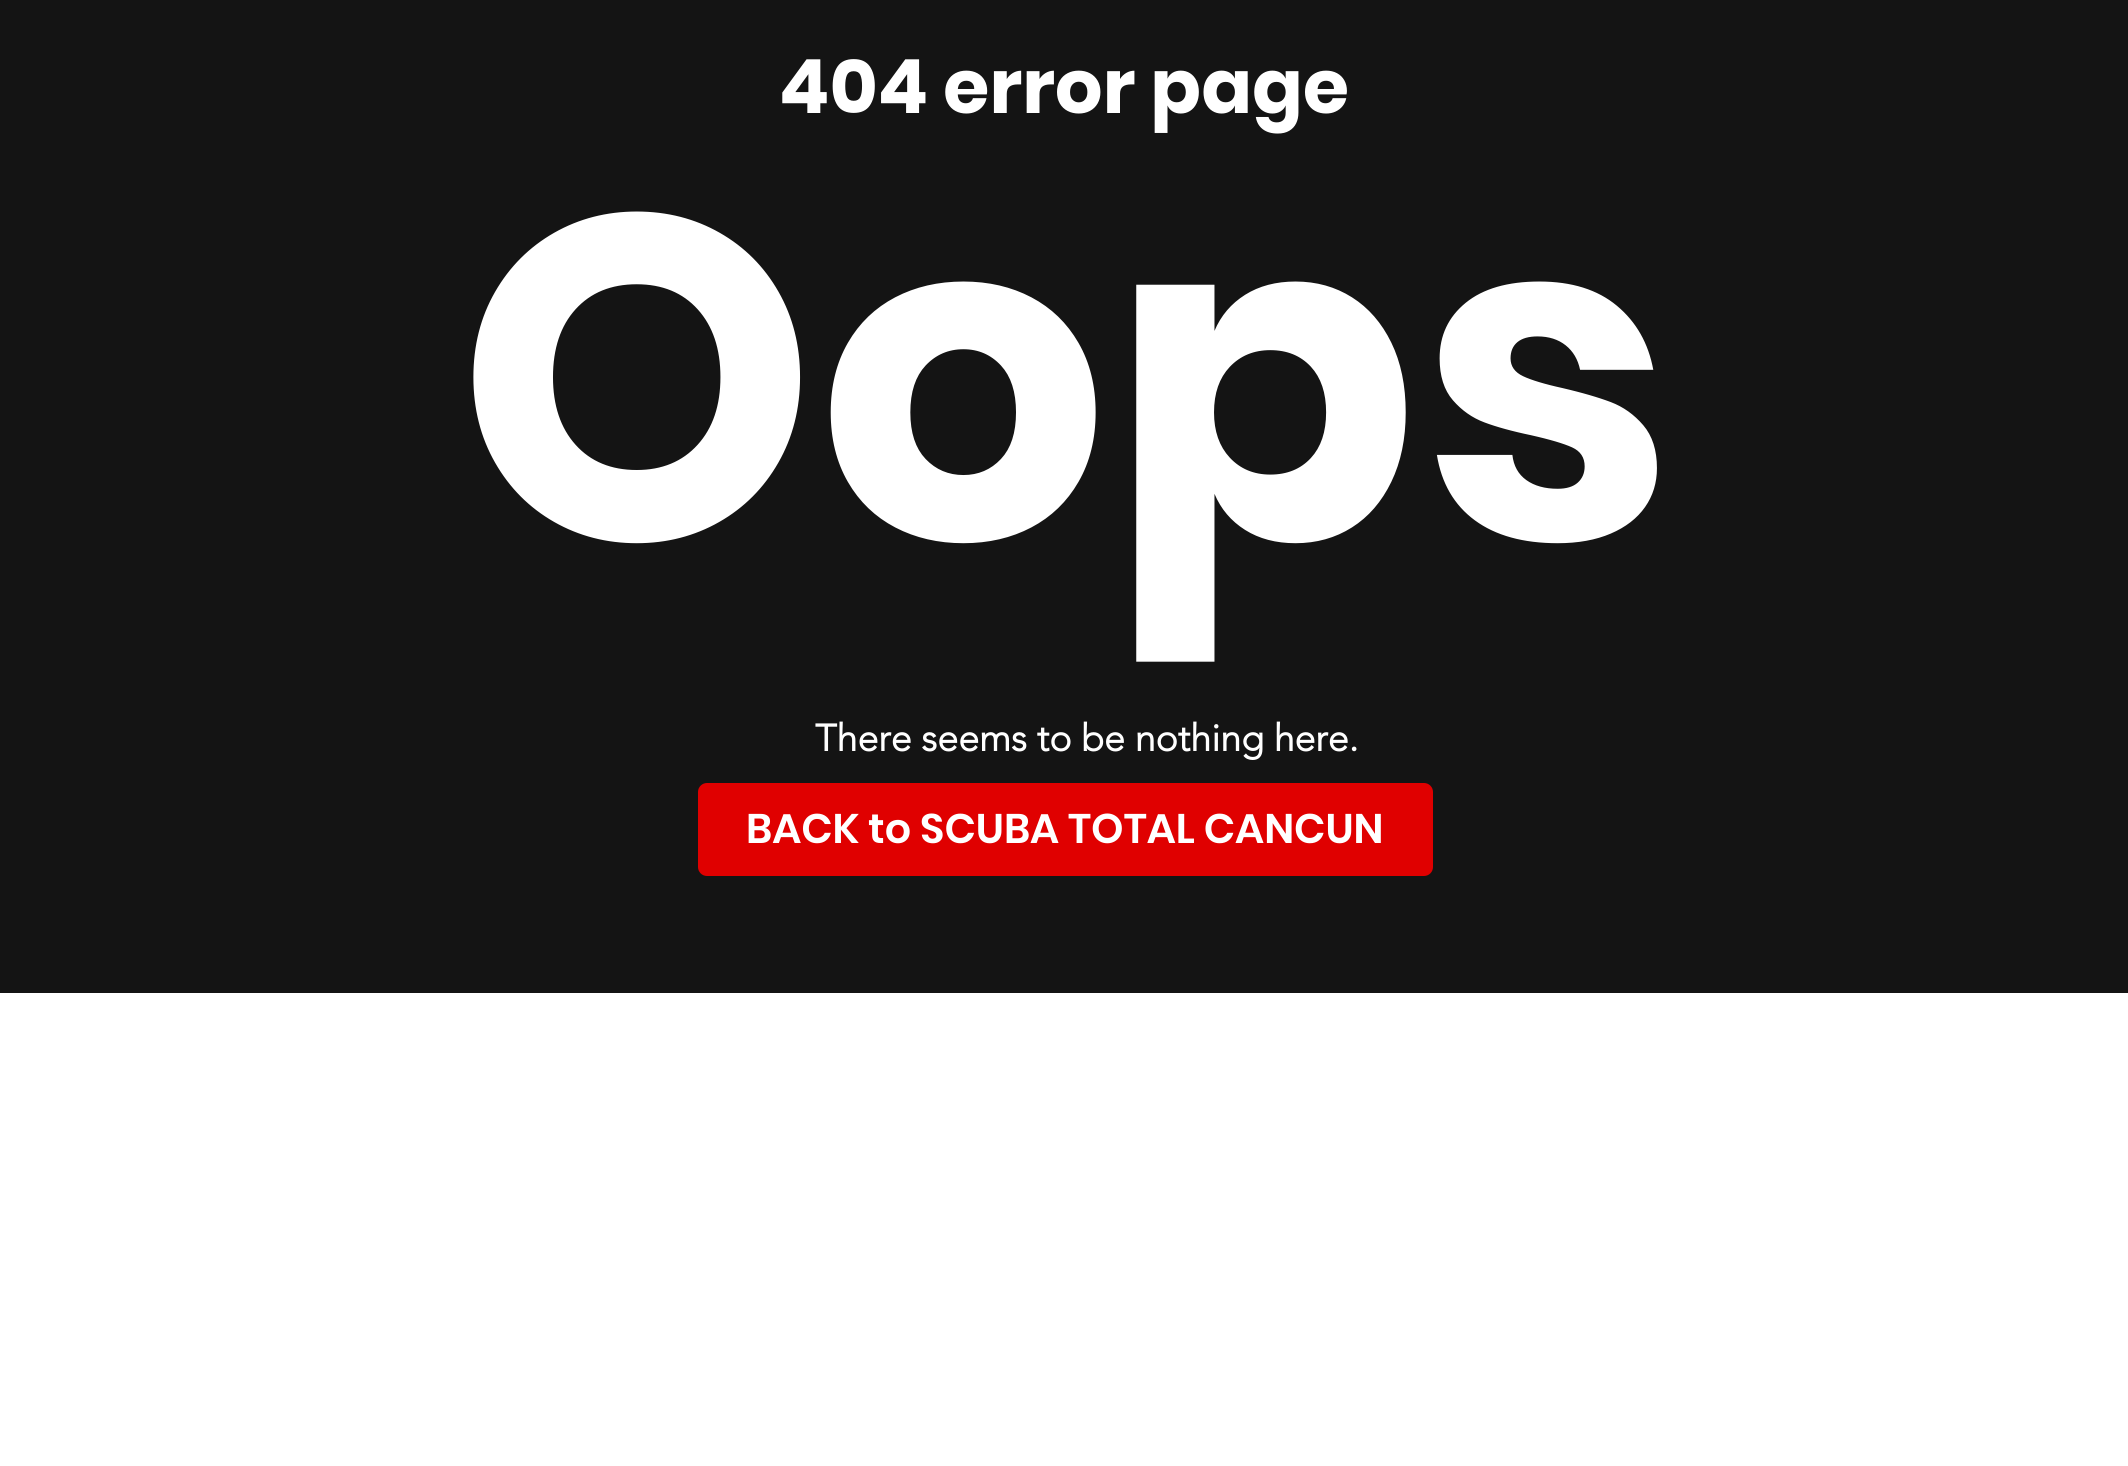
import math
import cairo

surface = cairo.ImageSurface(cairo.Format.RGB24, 2128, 1466)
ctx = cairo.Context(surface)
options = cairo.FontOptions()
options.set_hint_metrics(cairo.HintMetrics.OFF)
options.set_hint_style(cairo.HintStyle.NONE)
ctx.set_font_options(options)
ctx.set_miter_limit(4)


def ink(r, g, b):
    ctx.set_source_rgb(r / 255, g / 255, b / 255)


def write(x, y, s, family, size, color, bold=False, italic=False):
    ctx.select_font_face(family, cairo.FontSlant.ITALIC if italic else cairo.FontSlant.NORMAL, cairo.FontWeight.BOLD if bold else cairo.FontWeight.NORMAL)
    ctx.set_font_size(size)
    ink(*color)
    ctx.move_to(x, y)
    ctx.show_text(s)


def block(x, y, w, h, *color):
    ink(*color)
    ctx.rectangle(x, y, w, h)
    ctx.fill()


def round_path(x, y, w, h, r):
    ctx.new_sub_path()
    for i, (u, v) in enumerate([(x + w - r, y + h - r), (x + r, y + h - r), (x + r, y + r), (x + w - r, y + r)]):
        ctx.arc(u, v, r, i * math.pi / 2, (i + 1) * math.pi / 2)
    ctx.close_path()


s1 = dict(family="Poppins", size=75, color=(255, 255, 255), bold=True)
s2 = dict(family="Poppins", size=457.5, color=(255, 255, 255), bold=True)
s3 = dict(family="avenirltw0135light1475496", size=37.5, color=(255, 255, 255), bold=True)
s4 = dict(family="Poppins SemiBold", size=41.25, color=(255, 255, 255))

ink(255, 255, 255)
ctx.paint()
block(0, 0, 2128, 993, 20, 20, 20)
write(779, 113, "404 error page", **s1)
write(456, 540, "Oops", **s2)
write(815, 751, "There seems to be nothing here.", **s3)
ink(224, 0, 0)
round_path(698, 783, 735, 93, 9)
ctx.fill()
write(746, 843, "BACK to SCUBA TOTAL CANCUN", **s4)
surface.write_to_png("screenshot.png")
